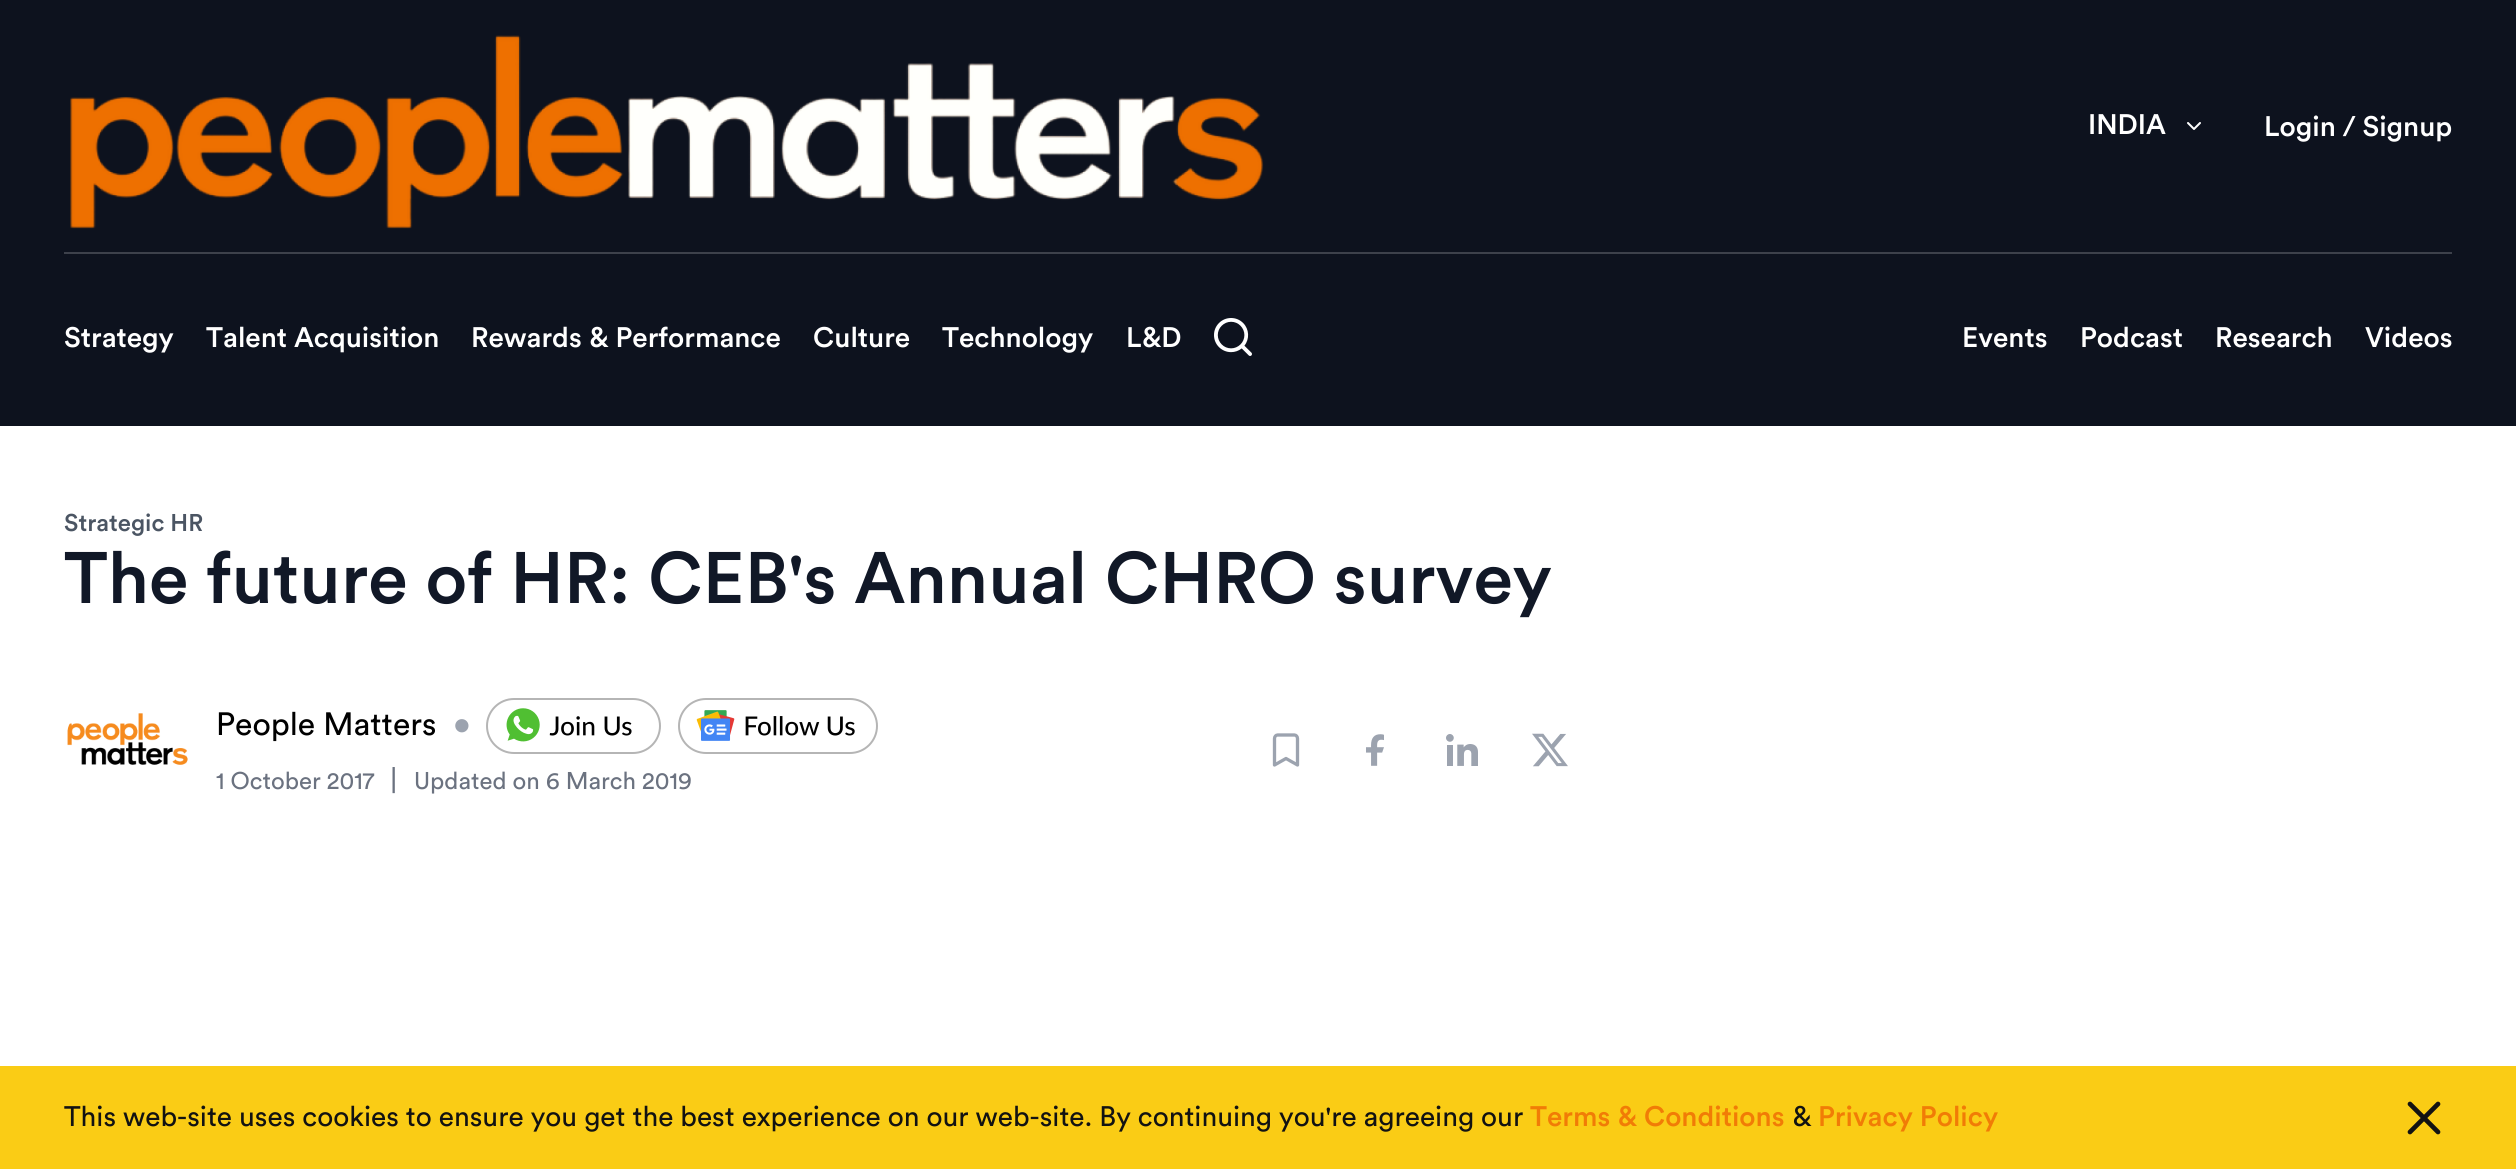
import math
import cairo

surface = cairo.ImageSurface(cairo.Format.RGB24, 2516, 1169)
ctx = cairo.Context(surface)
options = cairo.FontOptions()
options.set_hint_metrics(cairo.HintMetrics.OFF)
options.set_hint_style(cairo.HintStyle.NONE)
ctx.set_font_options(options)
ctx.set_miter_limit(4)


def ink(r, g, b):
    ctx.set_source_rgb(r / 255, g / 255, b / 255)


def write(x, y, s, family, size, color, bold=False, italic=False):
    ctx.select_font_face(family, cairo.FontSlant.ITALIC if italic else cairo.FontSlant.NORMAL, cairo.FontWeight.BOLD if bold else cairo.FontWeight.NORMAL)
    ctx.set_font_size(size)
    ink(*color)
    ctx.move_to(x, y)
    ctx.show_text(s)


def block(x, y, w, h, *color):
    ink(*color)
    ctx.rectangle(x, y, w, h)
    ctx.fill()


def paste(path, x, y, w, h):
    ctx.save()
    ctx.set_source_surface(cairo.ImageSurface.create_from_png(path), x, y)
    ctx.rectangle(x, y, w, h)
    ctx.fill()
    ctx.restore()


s1 = dict(family="Circular Medium", size=28, color=(255, 255, 255))
s2 = dict(family="Circular Medium", size=24, color=(75, 85, 99))
s3 = dict(family="Circular Medium", size=72, color=(17, 24, 39))
s4 = dict(family="Circular", size=32, color=(0, 0, 0))
s5 = dict(family="Circular", size=32, color=(156, 163, 175))
s6 = dict(family="Circular", size=24, color=(107, 114, 128))
s7 = dict(family="Circular", size=28, color=(107, 114, 128))
s8 = dict(family="Circular", size=28, color=(18, 18, 18))
s9 = dict(family="Circular Medium", size=28, color=(241, 124, 6))

ink(255, 255, 255)
ctx.paint()
block(0, 0, 2516, 426, 13, 18, 30)
paste("pic1.png", 70, 35, 1194, 194)
write(2088, 134, "INDIA", **s1)
ctx.new_path()
ctx.move_to(2188, 123)
ctx.line_to(2194, 129)
ctx.line_to(2200, 123)
ctx.set_line_cap(cairo.LineCap.ROUND)
ctx.set_line_join(cairo.LineJoin.ROUND)
ctx.stroke()
write(2264, 136, "Login / Signup", **s1)
block(64, 252, 2388, 2, 61, 65, 75)
write(64, 347, "Strategy", **s1)
write(206, 347, "Talent Acquisition", **s1)
write(471, 347, "Rewards & Performance", **s1)
write(813, 347, "Culture", **s1)
write(942, 347, "Technology", **s1)
write(1126, 347, "L&D", **s1)
paste("pic2.png", 1214, 318, 38, 38)
write(1962, 347, "Events", **s1)
write(2080, 347, "Podcast", **s1)
write(2215, 347, "Research", **s1)
write(2365, 347, "Videos", **s1)
write(64, 531, "Strategic HR", **s2)
write(64, 603, "The future of HR: CEB's Annual CHRO survey", **s3)
paste("pic3.png", 67, 713, 121, 52)
write(216, 735, "People Matters", **s4)
write(453, 735, "•", **s5)
paste("pic4.png", 486, 698, 175, 56)
paste("pic5.png", 678, 698, 200, 56)
write(216, 789, "1 October 2017", **s6)
write(390, 789, "|", **s7)
write(414, 789, "Updated on 6 March 2019", **s6)
ctx.new_path()
ctx.move_to(1297.5, 765)
ctx.line_to(1286, 758.5)
ctx.line_to(1274.5, 765)
ctx.line_to(1274.5, 738.5)
ctx.curve_to(1274.5, 736.5, 1276, 735, 1277.5, 735)
ctx.line_to(1294.5, 735)
ctx.curve_to(1296, 735, 1297.5, 736.5, 1297.5, 738.5)
ctx.close_path()
ink(156, 163, 175)
ctx.set_line_width(3.3)
ctx.stroke()
paste("pic6.png", 1366, 734, 18, 32)
paste("pic7.png", 1446, 734, 32, 32)
paste("pic8.png", 1532, 733, 36, 34)
block(0, 1066, 2516, 103, 250, 204, 21)
write(64, 1126, "This web-site uses cookies to ensure you get the best experience on our web-site. By continuing you're agreeing our", **s8)
write(1530, 1126, "Terms & Conditions", **s9)
write(1792, 1126, "&", **s8)
write(1818, 1126, "Privacy Policy", **s9)
ctx.new_path()
ctx.move_to(2438, 1104)
ctx.line_to(2410, 1132)
ctx.move_to(2410, 1104)
ctx.line_to(2438, 1132)
ink(18, 18, 18)
ctx.set_line_width(4.7)
ctx.stroke()
surface.write_to_png("screenshot.png")
